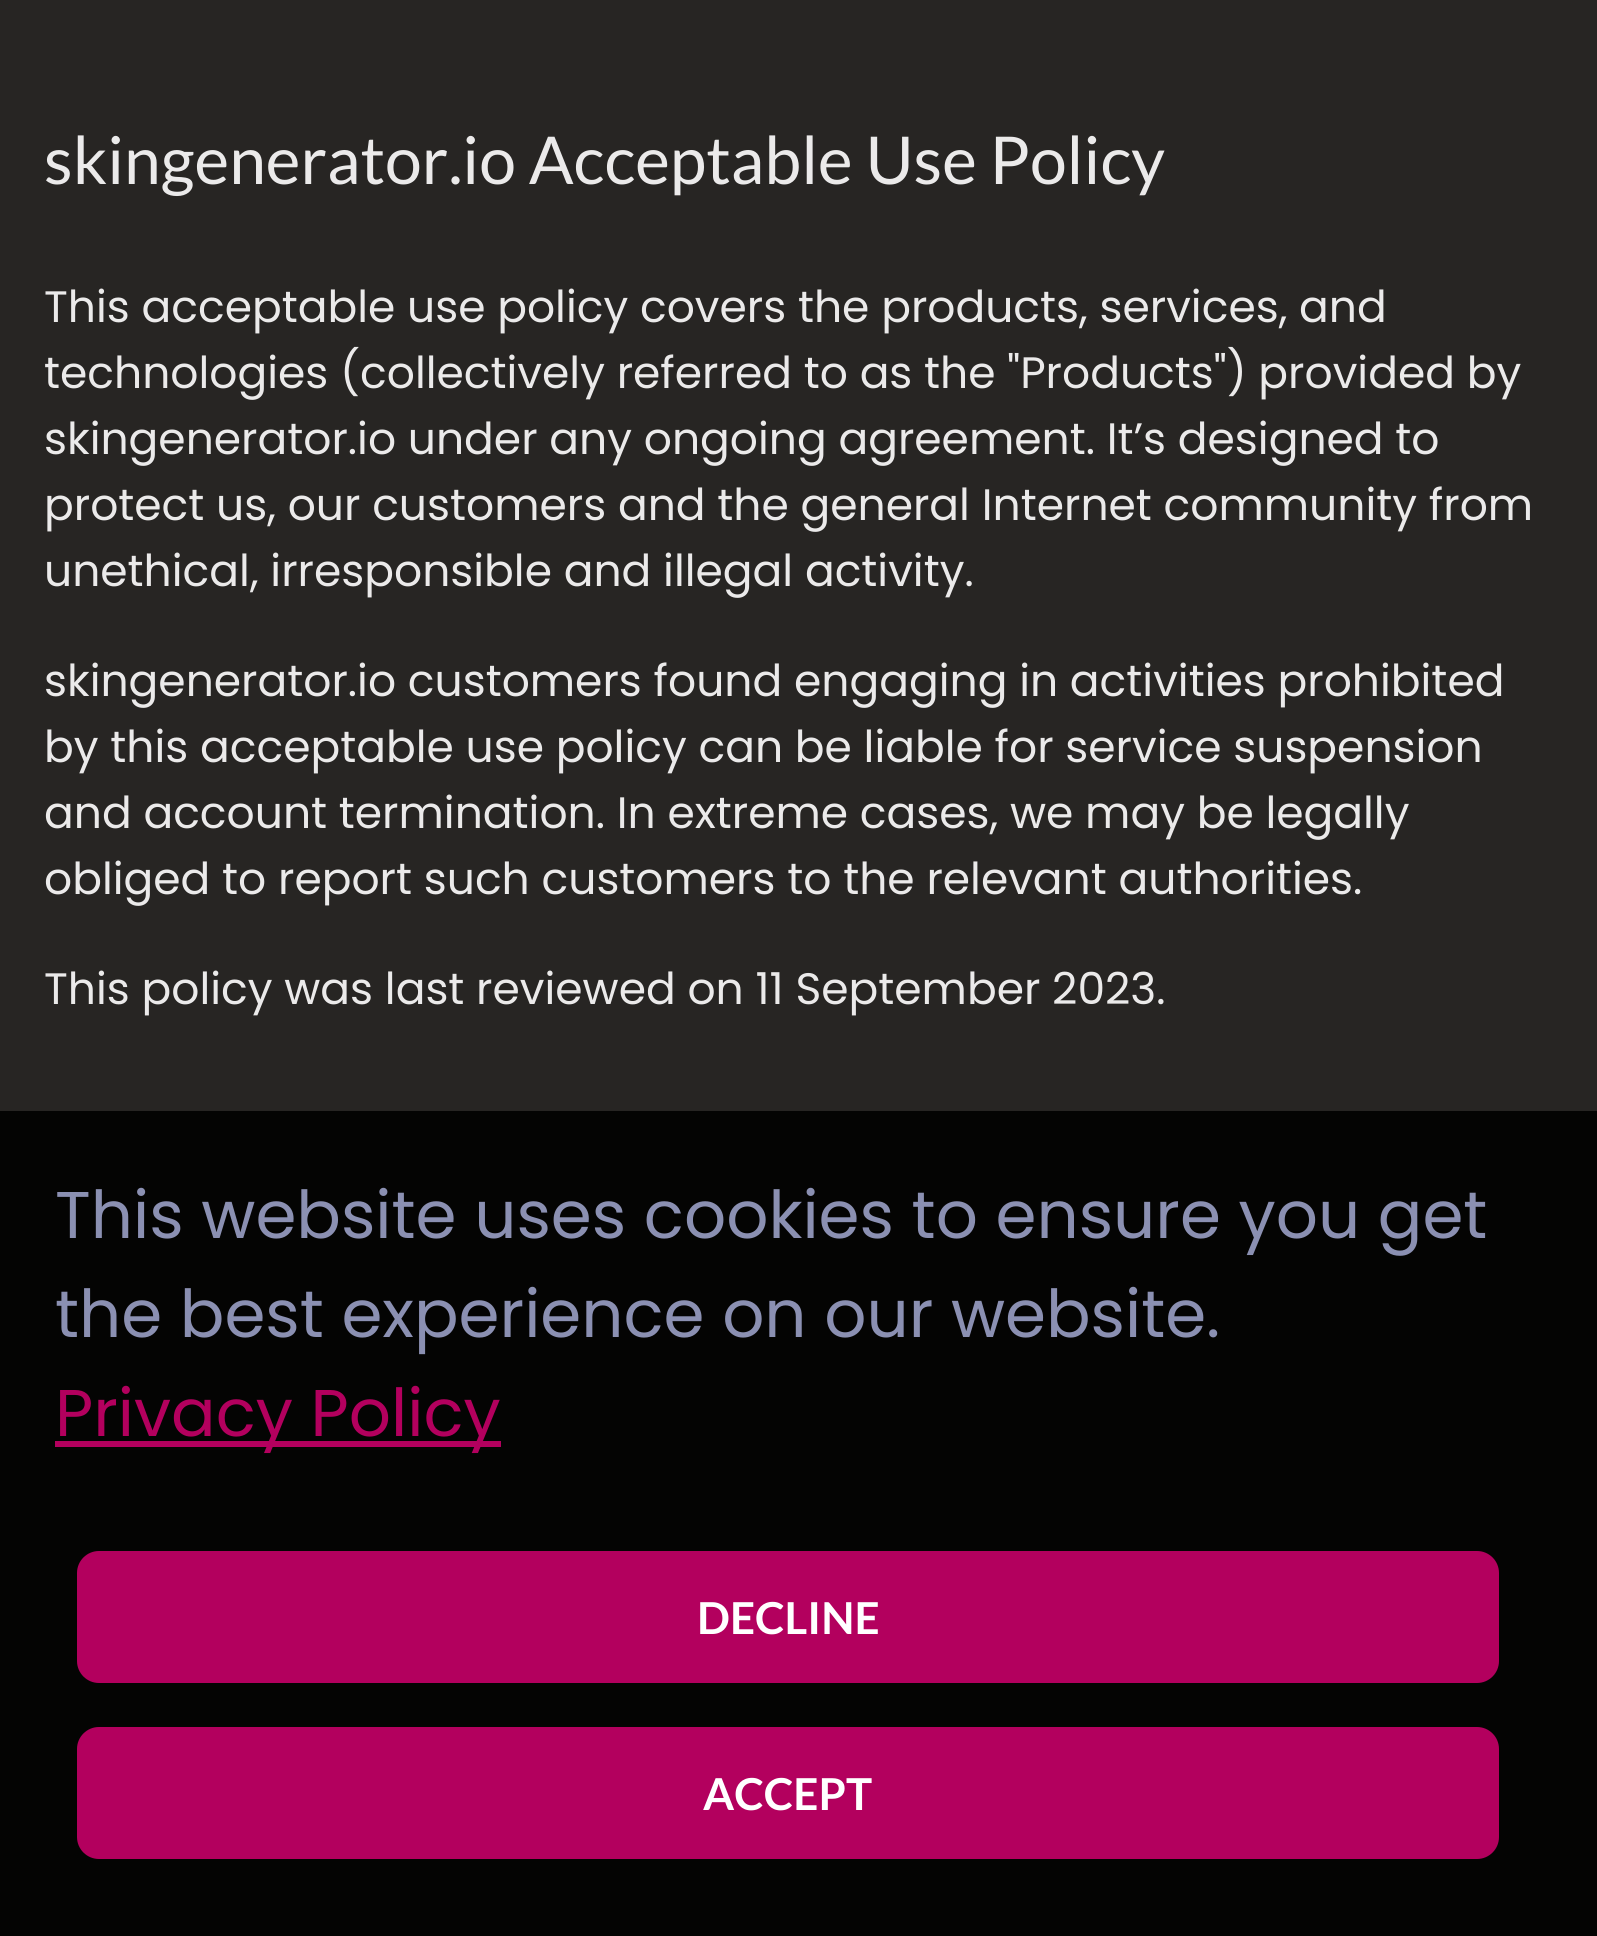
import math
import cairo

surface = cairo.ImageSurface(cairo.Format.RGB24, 1597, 1936)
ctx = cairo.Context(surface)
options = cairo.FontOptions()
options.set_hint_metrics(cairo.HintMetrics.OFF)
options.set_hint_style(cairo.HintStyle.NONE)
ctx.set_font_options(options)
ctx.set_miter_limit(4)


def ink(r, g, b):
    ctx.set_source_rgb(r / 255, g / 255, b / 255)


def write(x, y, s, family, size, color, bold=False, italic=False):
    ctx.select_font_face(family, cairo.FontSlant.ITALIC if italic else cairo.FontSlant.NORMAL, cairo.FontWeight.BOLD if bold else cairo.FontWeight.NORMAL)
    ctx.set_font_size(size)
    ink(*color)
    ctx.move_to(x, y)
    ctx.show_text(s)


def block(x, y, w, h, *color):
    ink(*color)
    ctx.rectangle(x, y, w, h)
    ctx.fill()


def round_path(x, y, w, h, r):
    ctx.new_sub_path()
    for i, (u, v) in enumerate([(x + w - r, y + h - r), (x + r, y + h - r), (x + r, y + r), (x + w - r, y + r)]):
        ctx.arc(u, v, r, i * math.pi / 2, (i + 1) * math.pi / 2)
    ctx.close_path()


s1 = dict(family="Lato", size=66, color=(235, 234, 234))
s2 = dict(family="Poppins", size=44, color=(235, 234, 234))
s3 = dict(family="Poppins", size=66, color=(139, 144, 178))
s4 = dict(family="Poppins", size=66, color=(179, 0, 94))
s5 = dict(family="Lato", size=44, color=(255, 255, 255), bold=True)

ink(39, 37, 35)
ctx.paint()
write(44, 184, "skingenerator.io Acceptable Use Policy", **s1)
write(44, 322, "This acceptable use policy covers the products, services, and", **s2)
write(44, 388, "technologies (collectively referred to as the \"Products\") provided by", **s2)
write(44, 454, "skingenerator.io under any ongoing agreement. It’s designed to", **s2)
write(44, 520, "protect us, our customers and the general Internet community from", **s2)
write(44, 586, "unethical, irresponsible and illegal activity.", **s2)
write(44, 696, "skingenerator.io customers found engaging in activities prohibited", **s2)
write(44, 762, "by this acceptable use policy can be liable for service suspension", **s2)
write(44, 828, "and account termination. In extreme cases, we may be legally", **s2)
write(44, 894, "obliged to report such customers to the relevant authorities.", **s2)
write(44, 1004, "This policy was last reviewed on 11 September 2023.", **s2)
ctx.set_source_rgba(0, 0, 0, 0.9)
ctx.rectangle(0, 1111, 1597, 825)
ctx.fill()
write(55, 1238, "This website uses cookies to ensure you get", **s3)
write(55, 1337, "the best experience on our website.", **s3)
block(55, 1441, 446, 6, 179, 0, 94)
write(55, 1436, "Privacy Policy", **s4)
round_path(77, 1551, 1422, 132, 22)
ctx.fill()
write(697, 1634, "DECLINE", **s5)
ink(179, 0, 94)
round_path(77, 1727, 1422, 132, 22)
ctx.fill()
write(703, 1810, "ACCEPT", **s5)
surface.write_to_png("screenshot.png")
